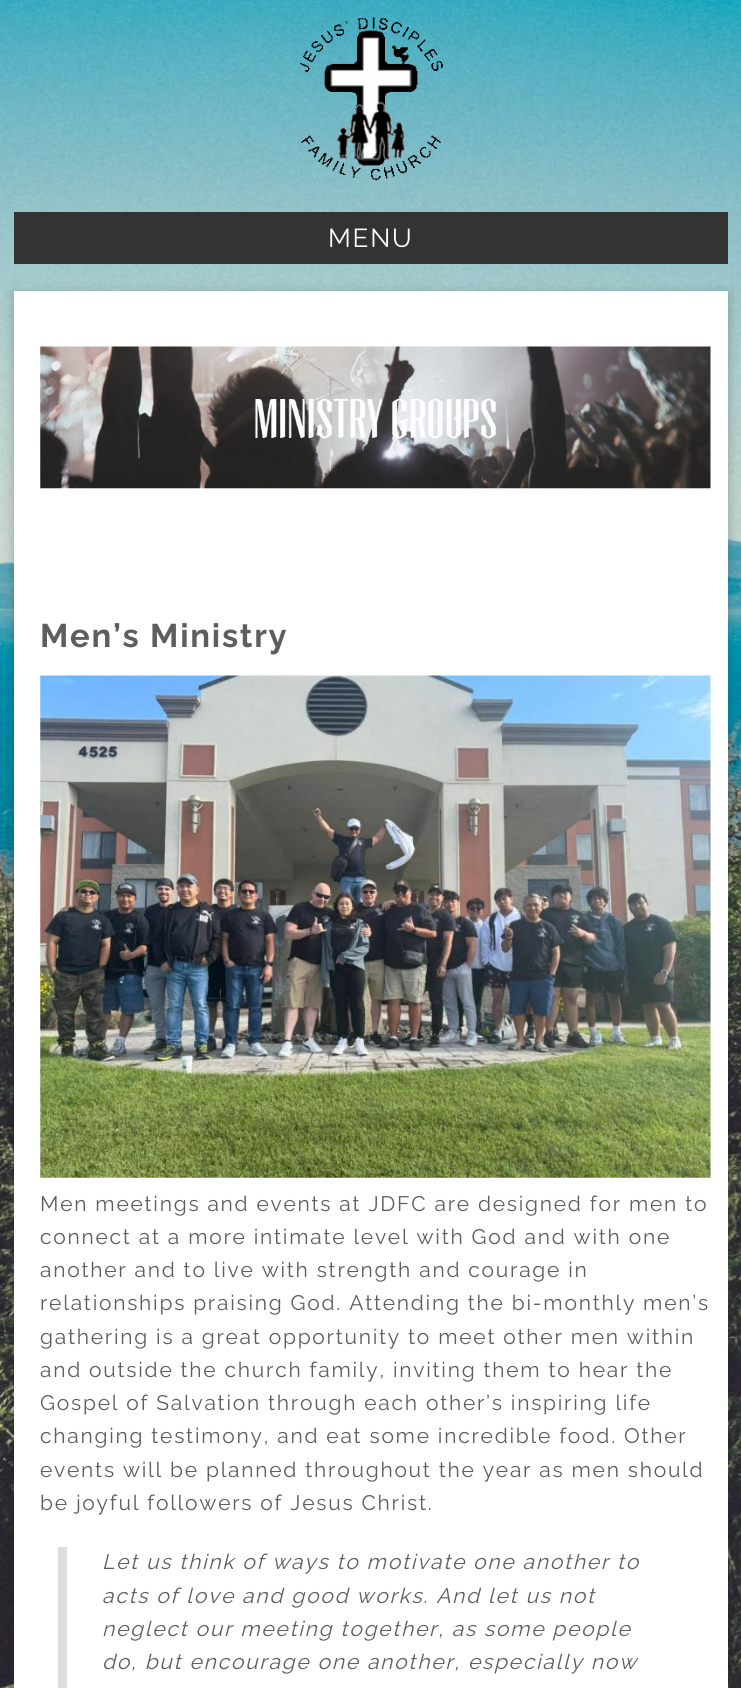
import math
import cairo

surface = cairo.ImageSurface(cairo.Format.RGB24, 741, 1688)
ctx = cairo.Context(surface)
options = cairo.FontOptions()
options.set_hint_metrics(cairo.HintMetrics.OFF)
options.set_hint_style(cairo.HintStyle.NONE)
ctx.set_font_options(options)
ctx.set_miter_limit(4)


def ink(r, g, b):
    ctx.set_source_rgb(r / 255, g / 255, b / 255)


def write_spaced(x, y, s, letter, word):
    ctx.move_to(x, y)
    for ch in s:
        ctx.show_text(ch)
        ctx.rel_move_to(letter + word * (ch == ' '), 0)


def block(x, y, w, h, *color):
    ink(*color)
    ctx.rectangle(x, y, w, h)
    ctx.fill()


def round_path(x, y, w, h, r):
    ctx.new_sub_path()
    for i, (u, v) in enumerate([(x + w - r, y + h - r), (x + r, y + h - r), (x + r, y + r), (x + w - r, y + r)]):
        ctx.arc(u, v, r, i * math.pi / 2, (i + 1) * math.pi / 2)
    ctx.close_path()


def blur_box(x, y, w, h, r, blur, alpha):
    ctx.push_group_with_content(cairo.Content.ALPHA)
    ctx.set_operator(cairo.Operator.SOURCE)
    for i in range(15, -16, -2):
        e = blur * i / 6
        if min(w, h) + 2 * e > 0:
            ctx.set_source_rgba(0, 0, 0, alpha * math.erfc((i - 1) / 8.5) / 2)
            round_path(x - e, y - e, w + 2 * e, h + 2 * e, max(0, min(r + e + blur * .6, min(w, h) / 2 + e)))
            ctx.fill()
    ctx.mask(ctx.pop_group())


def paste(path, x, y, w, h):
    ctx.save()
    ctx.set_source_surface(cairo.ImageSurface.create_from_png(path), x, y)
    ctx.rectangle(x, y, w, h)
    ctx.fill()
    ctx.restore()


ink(255, 255, 255)
ctx.paint()
paste("pic1.png", 0, 0, 741, 1688)
paste("pic2.png", 300, 17, 143, 164)
block(14, 212, 714, 52, 51, 51, 51)
ctx.select_font_face("Raleway")
ctx.set_font_size(26)
ink(255, 255, 255)
write_spaced(328, 247, "MENU", 1.75, 0)
ink(30, 30, 30)
blur_box(14, 294, 714, 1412, 0, 6, 0.28)
block(14, 291, 714, 1397, 255, 255, 255)
paste("pic3.png", 40, 346, 671, 143)
ctx.select_font_face("Raleway", cairo.FontSlant.NORMAL, cairo.FontWeight.BOLD)
ctx.set_font_size(32.75)
ink(94, 94, 94)
write_spaced(40, 647, "Men’s Ministry", 1.75, 0)
paste("pic4.png", 40, 675, 671, 503)
ctx.select_font_face("Raleway")
ctx.set_font_size(21)
write_spaced(40, 1211, "Men meetings and events at JDFC are designed for men to", 1.75, 0)
write_spaced(40, 1244, "connect at a more intimate level with God and with one", 1.75, 0)
write_spaced(40, 1277, "another and to live with strength and courage in", 1.75, 0)
write_spaced(40, 1310, "relationships praising God. Attending the bi-monthly men’s", 1.75, 0)
write_spaced(40, 1344, "gathering is a great opportunity to meet other men within", 1.75, 0)
write_spaced(40, 1377, "and outside the church family, inviting them to hear the", 1.75, 0)
write_spaced(40, 1410, "Gospel of Salvation through each other’s inspiring life", 1.75, 0)
write_spaced(40, 1443, "changing testimony, and eat some incredible food. Other", 1.75, 0)
write_spaced(40, 1477, "events will be planned throughout the year as men should", 1.75, 0)
write_spaced(40, 1510, "be joyful followers of Jesus Christ.", 1.75, 0)
block(58, 1547, 9, 141, 221, 221, 221)
ctx.select_font_face("Raleway", cairo.FontSlant.ITALIC)
ink(94, 94, 94)
write_spaced(102, 1569, "Let us think of ways to motivate one another to", 1.75, 0)
write_spaced(102, 1603, "acts of love and good works. And let us not", 1.75, 0)
write_spaced(102, 1636, "neglect our meeting together, as some people", 1.75, 0)
write_spaced(102, 1669, "do, but encourage one another, especially now", 1.75, 0)
surface.write_to_png("screenshot.png")
